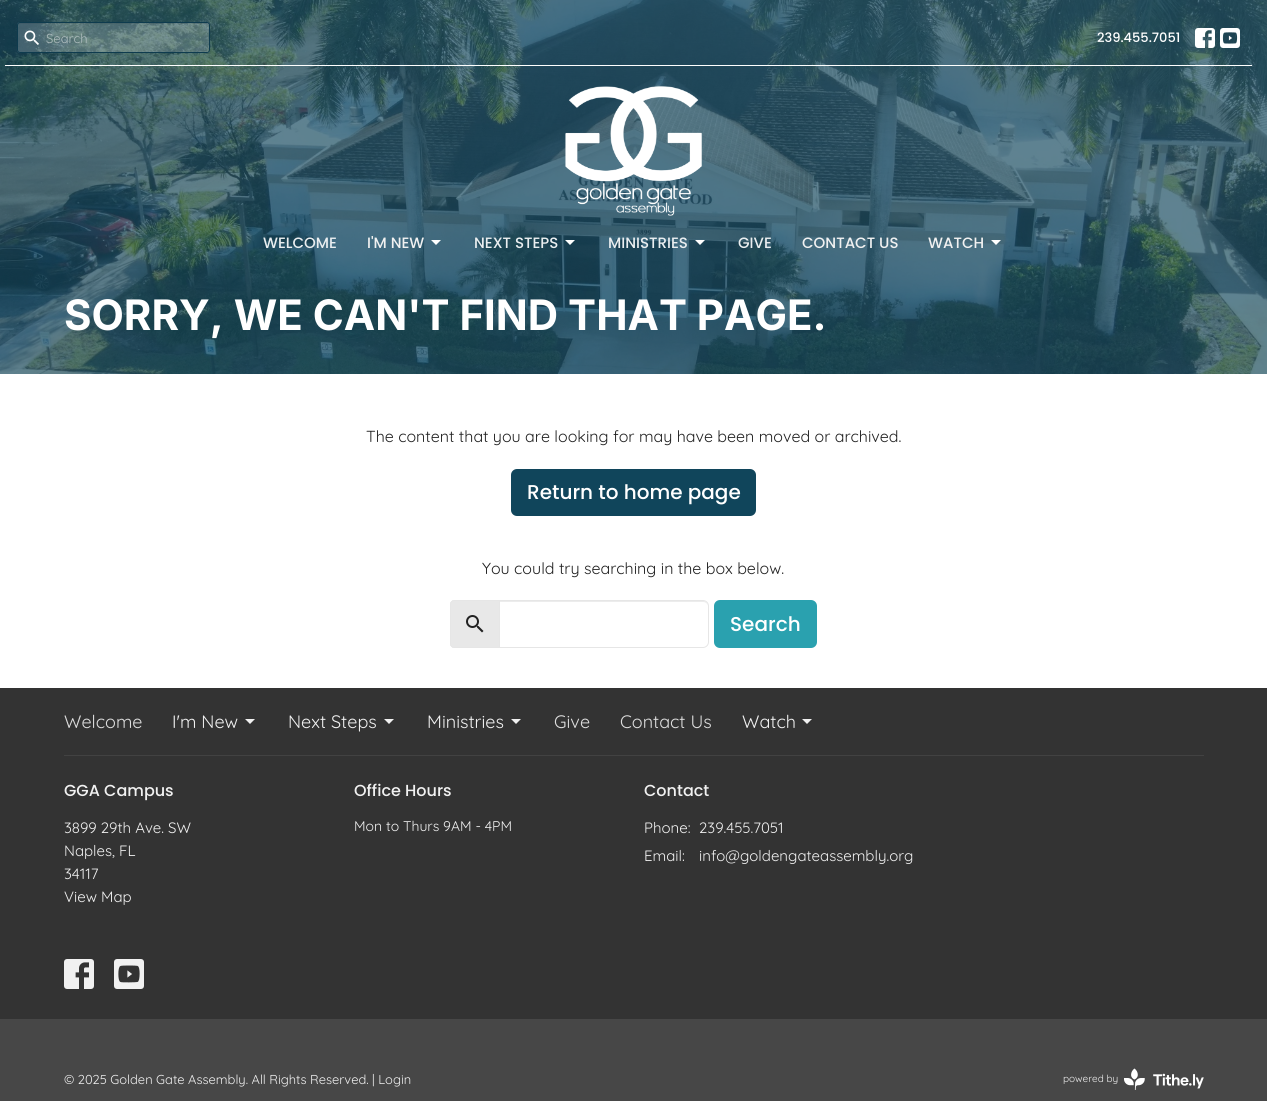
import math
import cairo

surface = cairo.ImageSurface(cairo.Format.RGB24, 1267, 1101)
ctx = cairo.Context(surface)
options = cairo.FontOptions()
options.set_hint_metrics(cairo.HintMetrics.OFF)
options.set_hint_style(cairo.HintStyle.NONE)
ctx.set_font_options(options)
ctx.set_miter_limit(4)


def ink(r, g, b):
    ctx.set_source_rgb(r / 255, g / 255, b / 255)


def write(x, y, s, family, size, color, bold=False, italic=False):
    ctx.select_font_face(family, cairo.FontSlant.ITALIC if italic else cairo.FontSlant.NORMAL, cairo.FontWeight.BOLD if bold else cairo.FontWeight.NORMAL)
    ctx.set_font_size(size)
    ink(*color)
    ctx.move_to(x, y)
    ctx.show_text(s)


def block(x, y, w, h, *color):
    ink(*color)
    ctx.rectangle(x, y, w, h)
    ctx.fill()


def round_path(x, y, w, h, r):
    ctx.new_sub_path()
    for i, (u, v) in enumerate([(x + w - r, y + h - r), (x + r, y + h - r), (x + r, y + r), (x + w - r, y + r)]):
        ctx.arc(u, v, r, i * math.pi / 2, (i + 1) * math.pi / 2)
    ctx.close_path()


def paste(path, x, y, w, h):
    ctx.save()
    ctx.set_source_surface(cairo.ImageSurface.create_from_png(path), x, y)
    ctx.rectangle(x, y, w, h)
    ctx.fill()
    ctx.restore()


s1 = dict(family="Quicksand", size=13, color=(175, 189, 190))
s2 = dict(family="Poppins Medium", size=13, color=(255, 255, 255))
s3 = dict(family="Poppins Medium", size=15, color=(234, 238, 240))
s4 = dict(family="Poppins Medium", size=15, color=(241, 241, 241))
s5 = dict(family="Inter", size=42, color=(255, 255, 255), bold=True)
s6 = dict(family="Quicksand", size=16, color=(34, 34, 34))
s7 = dict(family="Poppins Medium", size=20, color=(255, 255, 255))
s8 = dict(family="Quicksand", size=18, color=(222, 222, 222))
s9 = dict(family="Quicksand", size=18, color=(241, 241, 241))
s10 = dict(family="Poppins Medium", size=16, color=(241, 241, 241))
s11 = dict(family="Quicksand", size=15, color=(241, 241, 241))
s12 = dict(family="Quicksand", size=14, color=(241, 241, 241))
s13 = dict(family="Quicksand", size=12.9, color=(241, 241, 241))
s14 = dict(family="Quicksand", size=10, color=(241, 241, 241))

ink(255, 255, 255)
ctx.paint()
paste("pic5.png", 0, 0, 1267, 374)
block(5, 65, 1247, 1, 255, 255, 255)
ctx.set_source_rgba(1, 1, 1, 0.2)
round_path(17, 22, 193, 31, 3)
ctx.fill()
ctx.set_source_rgba(0, 0, 0, 0.07)
ctx.new_path()
ctx.move_to(20, 24)
ctx.line_to(207, 24)
ctx.line_to(209, 25)
ctx.line_to(209, 26)
ctx.line_to(209, 25)
ctx.curve_to(209, 24, 208, 23, 207, 23)
ctx.line_to(20, 23)
ctx.curve_to(19, 23, 18, 24, 18, 25)
ctx.line_to(18, 26)
ctx.curve_to(18, 25, 19, 24, 20, 24)
ctx.close_path()
ctx.fill()
round_path(17.5, 22.5, 192, 30, 2.5)
ink(14, 59, 78)
ctx.set_line_width(1)
ctx.stroke()
paste("pic1.png", 24, 30, 15, 15)
write(46, 43, "Search", **s1)
write(1097, 42, "239.455.7051", **s2)
paste("pic2.png", 1195, 28, 20, 20)
paste("pic3.png", 1220, 28, 20, 20)
paste("pic4.png", 565, 86, 137, 130)
write(263, 248, "WELCOME", **s3)
write(367, 248, "I'M NEW", **s4)
ink(255, 255, 255)
ctx.new_path()
ctx.move_to(431, 240)
ctx.line_to(436, 245)
ctx.line_to(441, 240)
ctx.close_path()
ctx.fill()
write(474, 248, "NEXT STEPS", **s3)
ink(255, 255, 255)
ctx.new_path()
ctx.move_to(565, 240)
ctx.line_to(570, 245)
ctx.line_to(575, 240)
ctx.close_path()
ctx.fill()
write(608, 248, "MINISTRIES", **s3)
ink(255, 255, 255)
ctx.new_path()
ctx.move_to(695, 240)
ctx.line_to(700, 245)
ctx.line_to(705, 240)
ctx.close_path()
ctx.fill()
write(738, 248, "GIVE", **s3)
write(802, 248, "CONTACT US", **s4)
write(928, 248, "WATCH", **s4)
ink(255, 255, 255)
ctx.new_path()
ctx.move_to(991, 240)
ctx.line_to(996, 245)
ctx.line_to(1001, 240)
ctx.close_path()
ctx.fill()
write(64, 330, "SORRY, WE CAN'T FIND THAT PAGE.", **s5)
write(366, 442, "The content that you are looking for may have been moved or archived.", **s6)
ink(16, 69, 91)
round_path(511, 469, 245, 47, 6)
ctx.fill()
write(527, 499, "Return to home page", **s7)
write(482, 574, "You could try searching in the box below.", **s6)
ink(232, 232, 232)
ctx.new_path()
ctx.move_to(454, 600)
ctx.line_to(499, 600)
ctx.line_to(499, 648)
ctx.line_to(454, 648)
ctx.curve_to(452, 648, 450, 646, 450, 644)
ctx.line_to(450, 604)
ctx.curve_to(450, 602, 452, 600, 454, 600)
ctx.close_path()
ctx.fill()
ink(230, 230, 230)
ctx.set_fill_rule(cairo.FillRule.EVEN_ODD)
ctx.new_path()
ctx.move_to(454, 600)
ctx.line_to(499, 600)
ctx.line_to(499, 648)
ctx.line_to(454, 648)
ctx.curve_to(452, 648, 450, 646, 450, 644)
ctx.line_to(450, 604)
ctx.curve_to(450, 602, 452, 600, 454, 600)
ctx.close_path()
ctx.move_to(454, 601)
ctx.line_to(499, 601)
ctx.line_to(499, 647)
ctx.line_to(454, 647)
ctx.curve_to(452, 647, 451, 646, 451, 644)
ctx.line_to(451, 604)
ctx.curve_to(451, 602, 452, 601, 454, 601)
ctx.close_path()
ctx.fill()
paste("pic6.png", 466, 615, 18, 18)
ink(236, 236, 236)
ctx.set_fill_rule(cairo.FillRule.WINDING)
ctx.new_path()
ctx.move_to(500, 602)
ctx.line_to(703, 602)
ctx.curve_to(706, 602, 708, 604, 708, 607)
ctx.curve_to(708, 604, 707, 602, 704, 601)
ctx.line_to(500, 601)
ctx.close_path()
ctx.fill()
ctx.new_path()
ctx.move_to(499.5, 600.5)
ctx.line_to(703, 600.5)
ctx.curve_to(706, 600.5, 708.5, 603, 708.5, 606)
ctx.line_to(708.5, 642)
ctx.curve_to(708.5, 645, 706, 647.5, 703, 647.5)
ctx.line_to(499.5, 647.5)
ctx.close_path()
ink(230, 230, 230)
ctx.stroke()
ink(42, 161, 175)
round_path(714, 600, 103, 48, 6)
ctx.fill()
write(730, 631, "Search", **s7)
block(0, 688, 1267, 331, 51, 51, 51)
write(64, 728, "Welcome", **s8)
write(172, 728, "I'm New", **s9)
ctx.new_path()
ctx.move_to(245, 719)
ctx.line_to(250, 724)
ctx.line_to(255, 719)
ctx.close_path()
ctx.fill()
write(288, 728, "Next Steps", **s9)
ctx.new_path()
ctx.move_to(384, 719)
ctx.line_to(389, 724)
ctx.line_to(394, 719)
ctx.close_path()
ctx.fill()
write(427, 728, "Ministries", **s9)
ctx.new_path()
ctx.move_to(511, 719)
ctx.line_to(516, 724)
ctx.line_to(521, 719)
ctx.close_path()
ctx.fill()
write(554, 728, "Give", **s8)
write(620, 728, "Contact Us", **s8)
write(742, 728, "Watch", **s9)
ctx.new_path()
ctx.move_to(802, 719)
ctx.line_to(807, 724)
ctx.line_to(812, 719)
ctx.close_path()
ctx.fill()
block(64, 755, 1140, 1, 66, 66, 66)
write(64, 796, "GGA Campus", **s10)
write(64, 833, "3899 29th Ave. SW", **s11)
write(64, 856, "Naples, FL", **s11)
write(64, 879, "34117", **s11)
write(64, 902, "View Map", **s11)
write(354, 796, "Office Hours", **s10)
write(354, 831, "Mon to Thurs 9AM - 4PM", **s12)
write(644, 796, "Contact", **s10)
write(644, 833, "Phone:", **s11)
write(699, 833, "239.455.7051", **s11)
write(644, 861, "Email:", **s11)
write(699, 861, "info@goldengateassembly.org", **s11)
paste("pic7.png", 64, 959, 30, 30)
paste("pic8.png", 114, 959, 30, 30)
block(0, 1019, 1267, 82, 71, 71, 71)
write(64, 1084, "© 2025 Golden Gate Assembly. All Rights Reserved. | Login", **s13)
write(1063, 1082, "powered by", **s14)
paste("pic9.png", 1124, 1068, 80, 22)
surface.write_to_png("screenshot.png")
